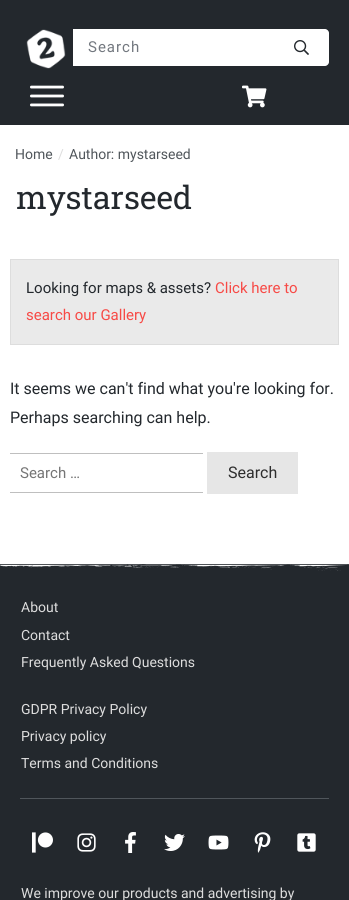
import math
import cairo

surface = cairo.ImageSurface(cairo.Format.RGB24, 349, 900)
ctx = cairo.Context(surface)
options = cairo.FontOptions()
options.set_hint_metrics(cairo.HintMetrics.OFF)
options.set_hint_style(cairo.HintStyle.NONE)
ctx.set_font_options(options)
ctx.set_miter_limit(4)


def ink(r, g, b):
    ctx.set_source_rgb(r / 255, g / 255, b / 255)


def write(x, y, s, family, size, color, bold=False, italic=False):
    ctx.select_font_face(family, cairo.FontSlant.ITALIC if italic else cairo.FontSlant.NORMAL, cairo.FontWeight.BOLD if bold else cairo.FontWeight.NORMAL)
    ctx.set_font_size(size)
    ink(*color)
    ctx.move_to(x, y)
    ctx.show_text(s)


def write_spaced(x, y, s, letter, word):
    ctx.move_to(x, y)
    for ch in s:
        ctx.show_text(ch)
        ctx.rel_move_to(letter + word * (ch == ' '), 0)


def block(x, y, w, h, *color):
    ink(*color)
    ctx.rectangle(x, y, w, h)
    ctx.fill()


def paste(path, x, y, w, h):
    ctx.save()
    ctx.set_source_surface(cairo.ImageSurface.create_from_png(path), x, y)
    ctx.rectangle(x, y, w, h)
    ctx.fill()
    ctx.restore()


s1 = dict(family="Roboto", size=14, color=(80, 86, 91))
s2 = dict(family="Roboto", size=14, color=(221, 221, 221))
s3 = dict(family="Roboto Slab", size=32, color=(35, 40, 45))
s4 = dict(family="Roboto", size=15, color=(35, 40, 45))
s5 = dict(family="Roboto", size=15, color=(247, 74, 70))
s6 = dict(family="Roboto", size=16, color=(35, 40, 45))
s7 = dict(family="Roboto", size=15, color=(117, 117, 117))
s8 = dict(family="Roboto", size=16, color=(46, 46, 46))

ink(255, 255, 255)
ctx.paint()
block(0, 0, 349, 125, 35, 40, 45)
paste("pic1.png", 26, 29, 40, 40)
block(73, 29, 201, 37, 255, 255, 255)
ctx.select_font_face("Roboto")
ctx.set_font_size(15)
ink(115, 120, 127)
write_spaced(88, 52, "Search", 1, 0)
ink(255, 255, 255)
ctx.new_path()
ctx.move_to(274, 29)
ctx.line_to(325, 29)
ctx.curve_to(327, 29, 329, 31, 329, 33)
ctx.line_to(329, 62)
ctx.curve_to(329, 64, 327, 66, 325, 66)
ctx.line_to(274, 66)
ctx.close_path()
ctx.fill()
paste("pic2.png", 294, 40, 15, 15)
paste("pic3.png", 30, 85, 34, 22)
paste("pic4.png", 242, 85, 25, 23)
write(15, 159, "Home", **s1)
write(58, 159, "/", **s2)
write(69, 159, "Author: mystarseed", **s1)
write(16, 209, "mystarseed", **s3)
ink(234, 234, 234)
ctx.rectangle(10.5, 259.5, 328, 85)
ctx.fill_preserve()
ink(221, 221, 221)
ctx.set_line_width(1)
ctx.stroke()
write(26, 293, "Looking for maps & assets?", **s4)
write(215, 293, "Click here to", **s5)
write(26, 320, "search our Gallery", **s5)
write(10, 394, "It seems we can't find what you're looking for.", **s6)
write(10, 423, "Perhaps searching can help.", **s6)
block(10, 453, 193, 1, 191, 191, 191)
block(10, 492, 193, 1, 191, 191, 191)
write(20, 478, "Search …", **s7)
block(207, 452, 91, 42, 230, 230, 230)
write(228, 478, "Search", **s8)
block(0, 564, 349, 336, 35, 40, 45)
paste("pic5.png", 0, 564, 349, 7)
write(21, 612, "About", **s2)
write(21, 640, "Contact", **s2)
write(21, 667, "Frequently Asked Questions", **s2)
write(21, 714, "GDPR Privacy Policy", **s2)
write(21, 741, "Privacy policy", **s2)
write(21, 768, "Terms and Conditions", **s2)
block(20, 798, 309, 1, 80, 86, 91)
paste("pic6.png", 32, 832, 21, 21)
paste("pic7.png", 77, 833, 19, 19)
paste("pic8.png", 125, 832, 11, 21)
paste("pic9.png", 164, 834, 21, 17)
paste("pic10.png", 208, 835, 21, 15)
paste("pic11.png", 254, 832, 17, 21)
paste("pic12.png", 297, 833, 19, 19)
write(21, 898, "We improve our products and advertising by", **s2)
surface.write_to_png("screenshot.png")
